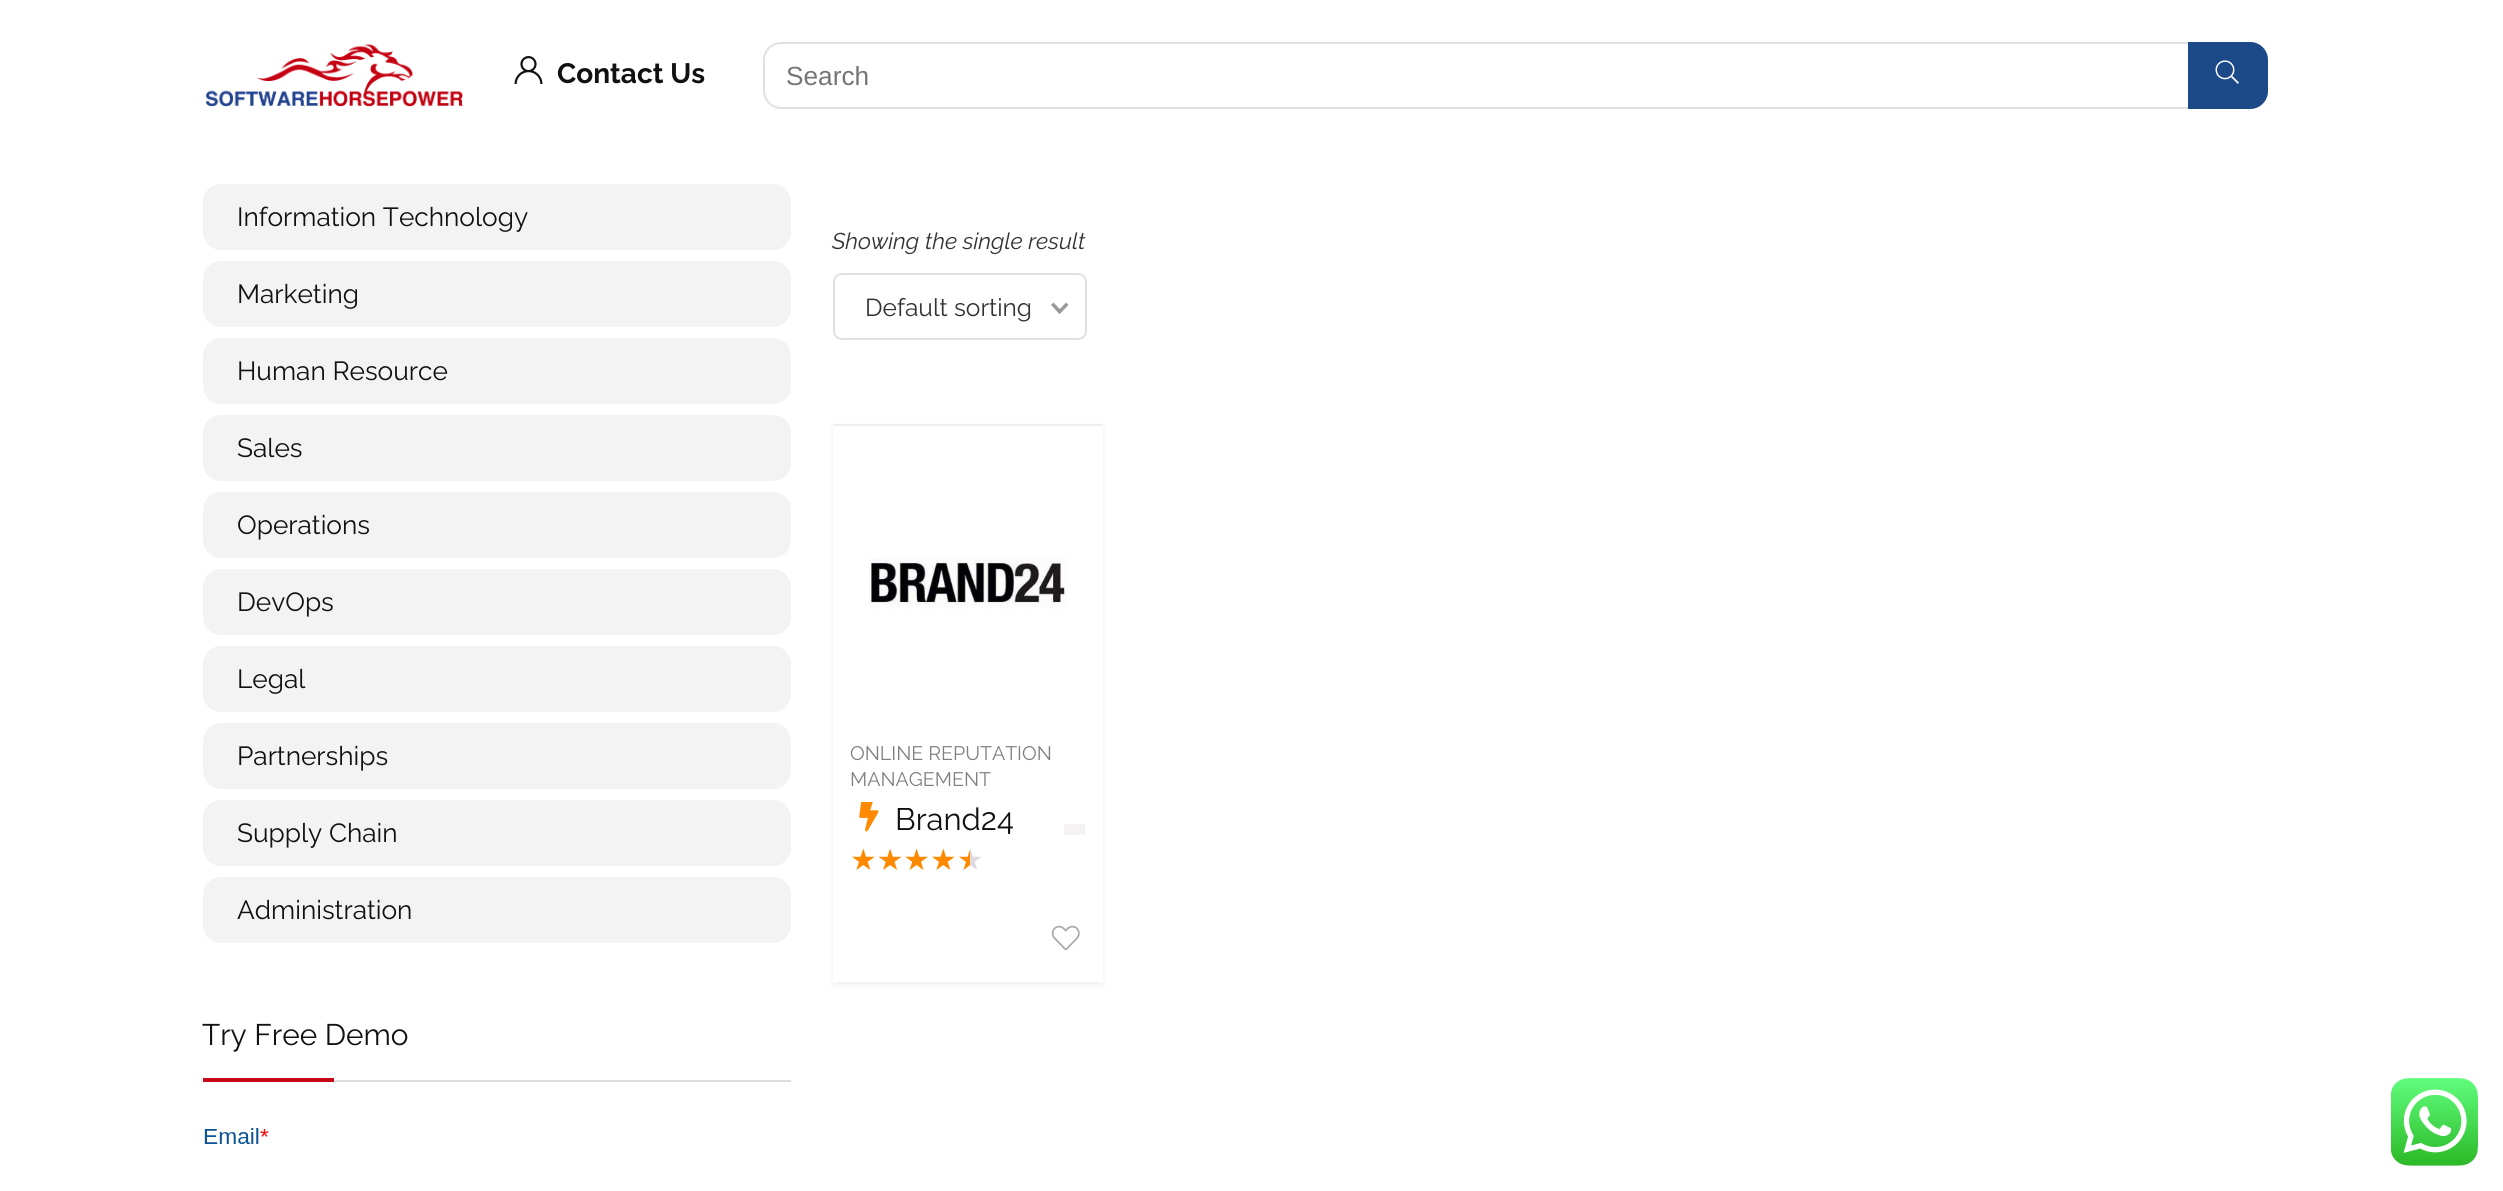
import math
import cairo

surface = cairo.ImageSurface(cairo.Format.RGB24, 2503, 1191)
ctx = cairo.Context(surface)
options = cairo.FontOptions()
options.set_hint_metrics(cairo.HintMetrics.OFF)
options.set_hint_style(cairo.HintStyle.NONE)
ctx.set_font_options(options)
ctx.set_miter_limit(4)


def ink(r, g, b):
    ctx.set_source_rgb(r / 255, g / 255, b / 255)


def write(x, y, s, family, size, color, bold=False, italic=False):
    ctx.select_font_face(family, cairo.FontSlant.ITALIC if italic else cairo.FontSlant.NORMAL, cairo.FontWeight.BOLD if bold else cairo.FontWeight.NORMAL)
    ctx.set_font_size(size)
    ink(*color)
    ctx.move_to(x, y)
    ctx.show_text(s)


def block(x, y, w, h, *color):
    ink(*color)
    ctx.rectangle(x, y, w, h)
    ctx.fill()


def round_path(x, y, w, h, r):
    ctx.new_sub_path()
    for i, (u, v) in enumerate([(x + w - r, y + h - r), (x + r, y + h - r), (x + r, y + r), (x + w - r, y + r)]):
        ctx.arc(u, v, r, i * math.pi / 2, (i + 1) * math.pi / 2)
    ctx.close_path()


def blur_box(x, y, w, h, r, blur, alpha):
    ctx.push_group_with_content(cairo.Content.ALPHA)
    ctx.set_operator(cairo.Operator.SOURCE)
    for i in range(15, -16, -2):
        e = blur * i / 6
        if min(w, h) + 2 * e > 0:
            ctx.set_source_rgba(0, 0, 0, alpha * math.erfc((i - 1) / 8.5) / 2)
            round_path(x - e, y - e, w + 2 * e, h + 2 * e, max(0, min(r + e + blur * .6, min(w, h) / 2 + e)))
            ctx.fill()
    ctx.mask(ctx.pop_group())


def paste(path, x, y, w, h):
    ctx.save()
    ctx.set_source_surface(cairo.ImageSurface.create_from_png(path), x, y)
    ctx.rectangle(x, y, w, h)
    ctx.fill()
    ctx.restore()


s1 = dict(family="Raleway", size=28, color=(17, 17, 17), bold=True)
s2 = dict(family="Liberation Sans", size=26.25, color=(117, 117, 117))
s3 = dict(family="Raleway", size=26.25, color=(17, 17, 17))
s4 = dict(family="Raleway", size=29.75, color=(17, 17, 17))
s5 = dict(family="Raleway", size=22.75, color=(51, 51, 51), italic=True)
s6 = dict(family="Raleway", size=24.5, color=(51, 51, 51))
s7 = dict(family="Raleway", size=19.6, color=(128, 128, 128))
s8 = dict(family="Raleway", size=31, color=(17, 17, 17))
s9 = dict(family="DejaVu Sans", size=29.75, color=(255, 138, 0))

ink(255, 255, 255)
ctx.paint()
paste("pic1.png", 206, 44, 257, 63)
paste("pic2.png", 514, 56, 29, 28)
write(557, 83, "Contact Us", **s1)
round_path(764, 43, 1503, 65, 17)
ink(225, 225, 225)
ctx.stroke()
write(786, 85, "Search", **s2)
ink(28, 73, 136)
ctx.new_path()
ctx.move_to(2188, 42)
ctx.line_to(2250, 42)
ctx.curve_to(2260, 42, 2268, 50, 2268, 60)
ctx.line_to(2268, 91)
ctx.curve_to(2268, 101, 2260, 109, 2250, 109)
ctx.line_to(2188, 109)
ctx.close_path()
ctx.fill()
paste("pic3.png", 2215, 60, 24, 24)
ink(243, 243, 243)
round_path(203, 184, 588, 66, 18)
ctx.fill()
write(237, 226, "Information Technology", **s3)
ink(243, 243, 243)
round_path(203, 261, 588, 66, 18)
ctx.fill()
write(237, 303, "Marketing", **s3)
ink(243, 243, 243)
round_path(203, 338, 588, 66, 18)
ctx.fill()
write(237, 380, "Human Resource", **s3)
ink(243, 243, 243)
round_path(203, 415, 588, 66, 18)
ctx.fill()
write(237, 457, "Sales", **s3)
ink(243, 243, 243)
round_path(203, 492, 588, 66, 18)
ctx.fill()
write(237, 534, "Operations", **s3)
ink(243, 243, 243)
round_path(203, 569, 588, 66, 18)
ctx.fill()
write(237, 611, "DevOps", **s3)
ink(243, 243, 243)
round_path(203, 646, 588, 66, 18)
ctx.fill()
write(237, 688, "Legal", **s3)
ink(243, 243, 243)
round_path(203, 723, 588, 66, 18)
ctx.fill()
write(237, 765, "Partnerships", **s3)
ink(243, 243, 243)
round_path(203, 800, 588, 66, 18)
ctx.fill()
write(237, 842, "Supply Chain", **s3)
ink(243, 243, 243)
round_path(203, 877, 588, 66, 18)
ctx.fill()
write(237, 919, "Administration", **s3)
block(334, 1080, 457, 2, 221, 221, 221)
write(202, 1045, "Try Free Demo", **s4)
block(203, 1078, 131, 4, 199, 8, 24)
paste("pic4.png", 204, 1128, 65, 16)
write(832, 249, "Showing the single result", **s5)
round_path(834, 274, 252, 65, 8)
ink(225, 225, 225)
ctx.stroke()
write(865, 316, "Default sorting", **s6)
ink(153, 153, 153)
ctx.new_path()
ctx.move_to(1066, 302.5)
ctx.line_to(1068.5, 305)
ctx.line_to(1059.5, 314)
ctx.line_to(1057.5, 311.5)
ctx.close_path()
ctx.fill()
ctx.new_path()
ctx.move_to(1053.5, 302.5)
ctx.line_to(1062, 311.5)
ctx.line_to(1059.5, 314)
ctx.line_to(1051, 305)
ctx.close_path()
ctx.fill()
ink(0, 0, 0)
blur_box(833, 427, 270, 558, 0, 3.5, 0.07)
block(833, 426, 270, 556, 255, 255, 255)
block(833, 424, 270, 2, 239, 239, 239)
paste("pic5.png", 869, 557, 199, 52)
write(850, 760, "ONLINE REPUTATION", **s7)
write(850, 786, "MANAGEMENT", **s7)
paste("pic6.png", 859, 802, 20, 30)
write(895, 830, "Brand24", **s8)
write(850, 870, "★★★★", **s9)
gradient = cairo.LinearGradient(957, 861, 983, 861)
gradient.add_color_stop_rgba(0, 1, 0.541, 0, 1)
gradient.add_color_stop_rgba(0.5, 1, 0.541, 0, 1)
gradient.add_color_stop_rgba(0.51, 0.878, 0.855, 0.875, 1)
gradient.add_color_stop_rgba(1, 0.878, 0.855, 0.875, 1)
ctx.set_source(gradient)
ctx.move_to(957, 870)
ctx.show_text("★")
block(1064, 824, 21, 11, 244, 242, 243)
paste("pic7.png", 1051, 925, 29, 26)
paste("pic8.png", 2391, 1078, 87, 88)
surface.write_to_png("screenshot.png")
